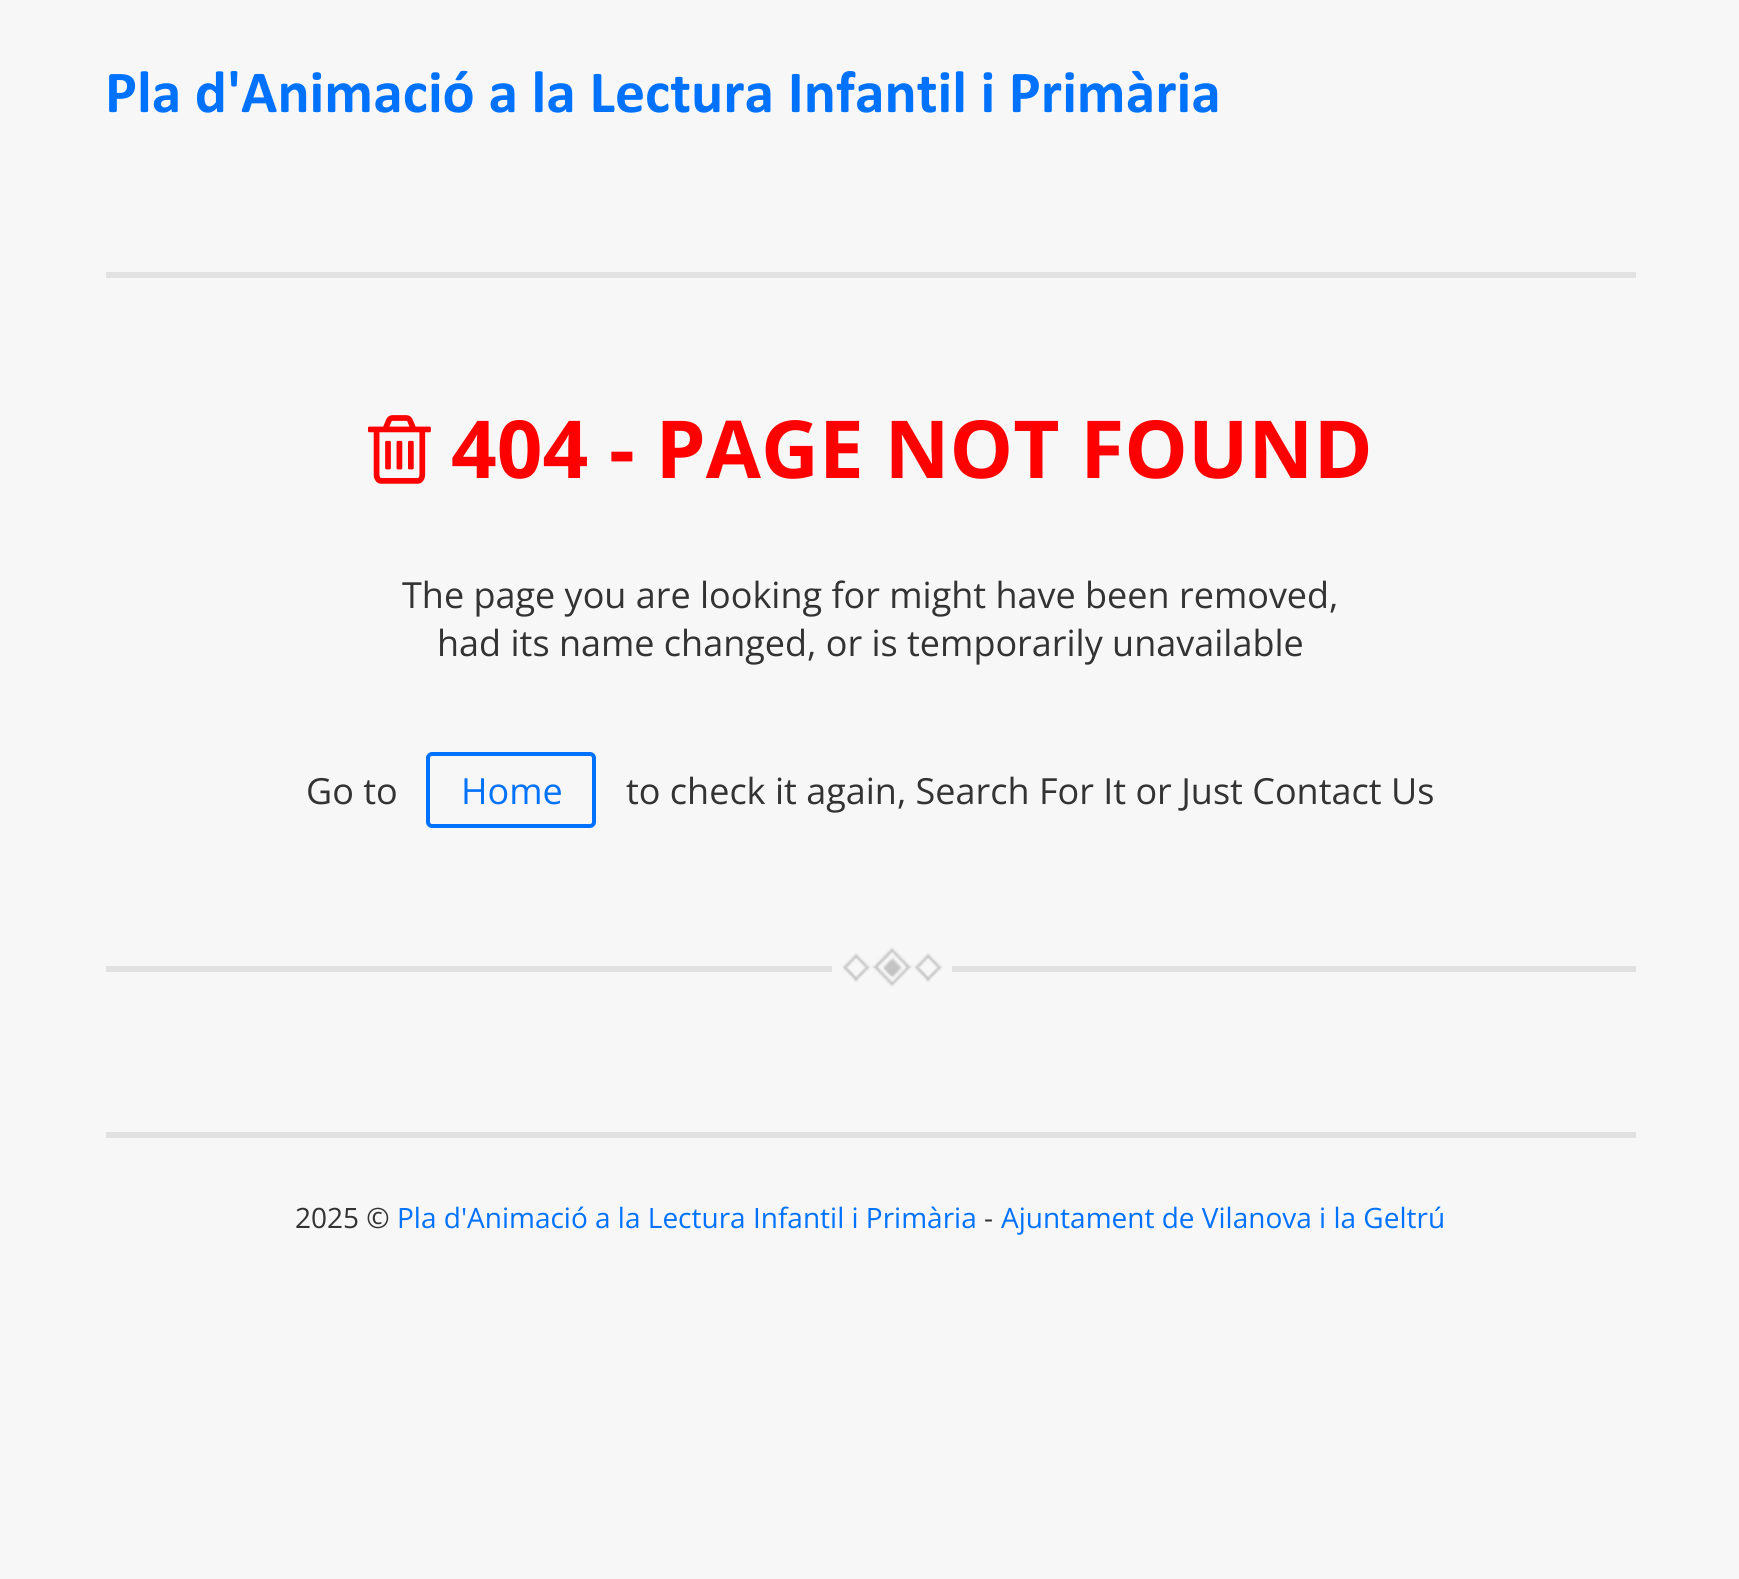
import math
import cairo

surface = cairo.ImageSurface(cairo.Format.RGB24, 1739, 1579)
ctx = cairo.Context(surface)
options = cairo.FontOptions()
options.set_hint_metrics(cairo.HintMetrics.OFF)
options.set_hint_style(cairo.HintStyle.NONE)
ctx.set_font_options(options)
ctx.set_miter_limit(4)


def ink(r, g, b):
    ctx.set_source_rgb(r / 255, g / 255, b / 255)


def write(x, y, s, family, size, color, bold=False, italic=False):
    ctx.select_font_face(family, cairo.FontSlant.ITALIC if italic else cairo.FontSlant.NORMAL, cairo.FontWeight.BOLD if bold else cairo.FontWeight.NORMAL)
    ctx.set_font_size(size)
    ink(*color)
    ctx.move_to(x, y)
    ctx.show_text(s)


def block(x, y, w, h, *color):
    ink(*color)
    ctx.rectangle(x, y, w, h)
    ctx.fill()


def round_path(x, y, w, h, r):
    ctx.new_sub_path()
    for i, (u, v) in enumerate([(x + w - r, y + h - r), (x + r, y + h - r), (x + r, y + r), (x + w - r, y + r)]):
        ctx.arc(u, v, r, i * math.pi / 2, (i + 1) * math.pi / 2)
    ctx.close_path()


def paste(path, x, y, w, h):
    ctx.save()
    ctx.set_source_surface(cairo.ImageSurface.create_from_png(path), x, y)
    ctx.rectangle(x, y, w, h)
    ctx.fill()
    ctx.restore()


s1 = dict(family="Calibri", size=60, color=(0, 114, 254), bold=True)
s2 = dict(family="Open Sans", size=80, color=(255, 0, 0), bold=True)
s3 = dict(family="Open Sans", size=36, color=(51, 51, 51))
s4 = dict(family="Open Sans", size=36, color=(0, 114, 254))
s5 = dict(family="Open Sans", size=28, color=(51, 51, 51))
s6 = dict(family="Open Sans", size=28, color=(0, 114, 254))

ink(247, 247, 247)
ctx.paint()
block(106, 272, 1530, 6, 226, 226, 226)
write(105, 112, "Pla d'Animació a la Lectura Infantil i Primària", **s1)
paste("pic1.png", 368, 415, 63, 69)
write(451, 478, "404 - PAGE NOT FOUND", **s2)
write(402, 608, "The page you are looking for might have been removed,", **s3)
write(437, 656, "had its name changed, or is temporarily unavailable", **s3)
write(306, 804, "Go to", **s3)
round_path(428, 754, 166, 72, 4)
ink(0, 114, 254)
ctx.set_line_width(4)
ctx.stroke()
write(461, 804, "Home", **s4)
write(626, 804, "to check it again, Search For It or Just Contact Us", **s3)
block(106, 966, 1530, 6, 225, 225, 225)
block(832, 966, 120, 6, 247, 247, 247)
paste("pic2.png", 842, 947, 101, 40)
block(106, 1132, 1530, 6, 225, 225, 225)
write(295, 1228, "2025 ©", **s5)
write(397, 1228, "Pla d'Animació a la Lectura Infantil i Primària", **s6)
write(984, 1228, "-", **s5)
write(1001, 1228, "Ajuntament de Vilanova i la Geltrú", **s6)
surface.write_to_png("screenshot.png")
